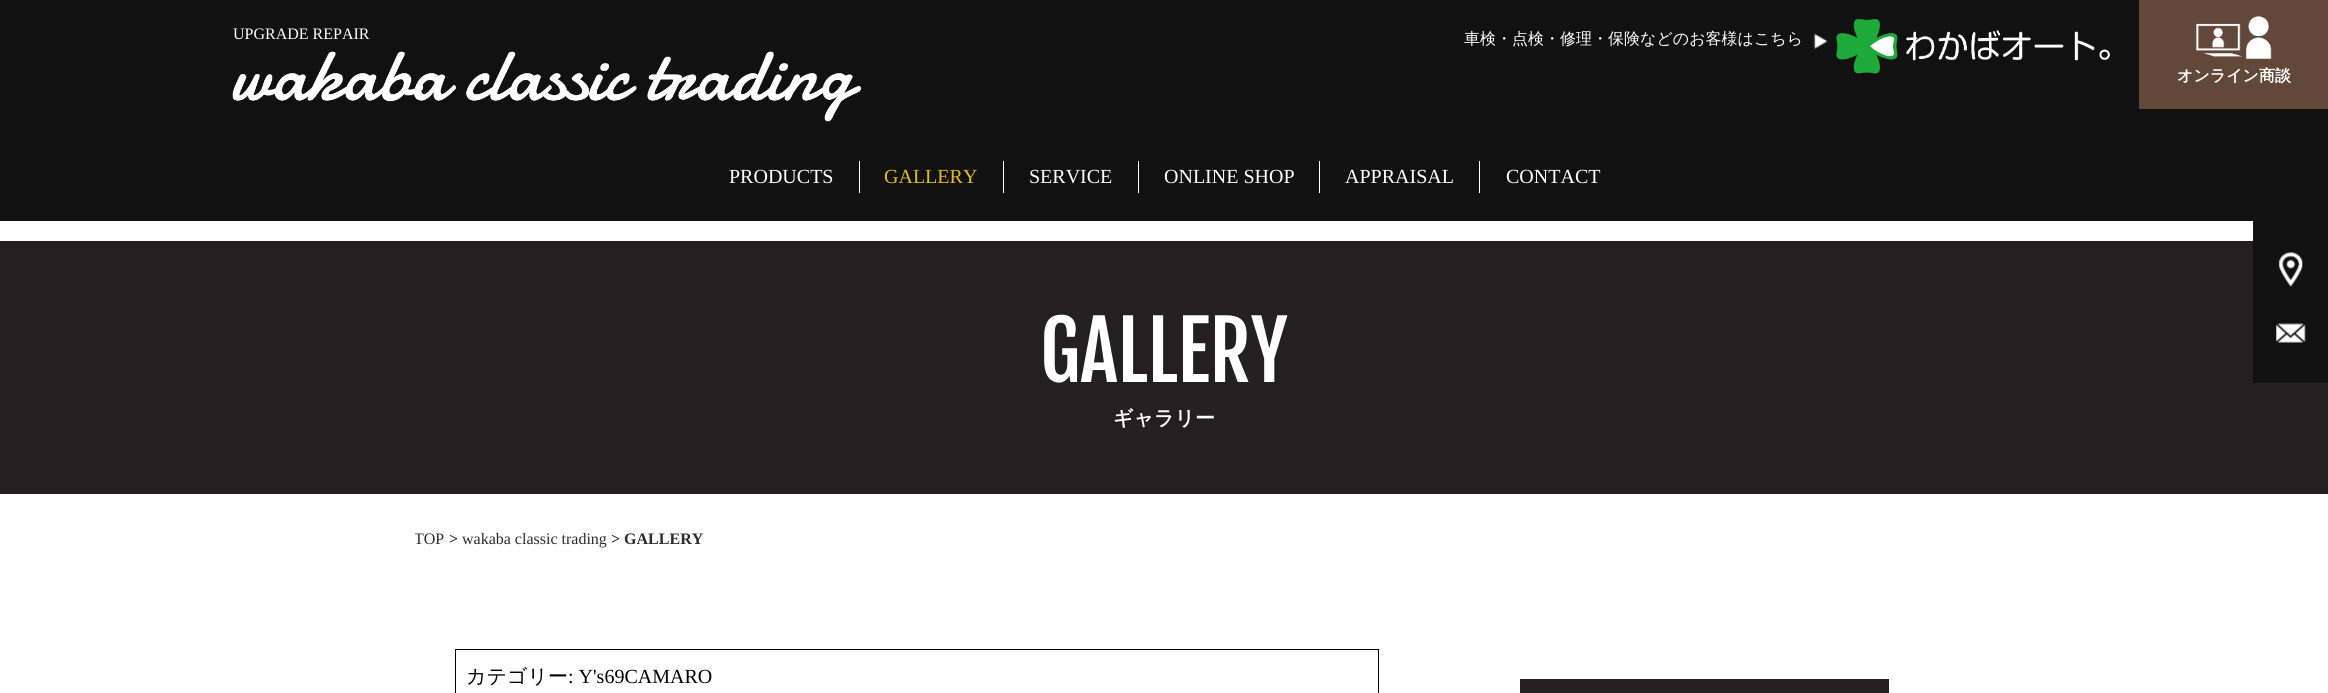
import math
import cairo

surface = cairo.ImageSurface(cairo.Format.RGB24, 2328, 693)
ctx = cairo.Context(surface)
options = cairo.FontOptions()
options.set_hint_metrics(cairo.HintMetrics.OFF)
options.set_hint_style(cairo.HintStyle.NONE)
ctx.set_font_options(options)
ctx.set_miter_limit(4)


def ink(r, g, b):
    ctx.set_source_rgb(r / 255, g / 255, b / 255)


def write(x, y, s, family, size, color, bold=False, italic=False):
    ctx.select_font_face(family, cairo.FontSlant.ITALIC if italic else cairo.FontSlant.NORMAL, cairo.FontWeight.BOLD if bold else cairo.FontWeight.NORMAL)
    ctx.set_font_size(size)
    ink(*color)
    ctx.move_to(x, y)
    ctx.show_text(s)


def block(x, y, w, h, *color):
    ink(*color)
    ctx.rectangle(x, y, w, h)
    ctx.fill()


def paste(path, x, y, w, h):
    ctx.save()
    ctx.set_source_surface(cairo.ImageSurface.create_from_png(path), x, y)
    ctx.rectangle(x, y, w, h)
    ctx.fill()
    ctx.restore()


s1 = dict(family="Liberation Serif", size=16, color=(255, 255, 255))
s2 = dict(family="WenQuanYi Zen Hei Medium", size=16, color=(255, 255, 255))
s3 = dict(family="WenQuanYi Zen Hei", size=16, color=(255, 255, 255), bold=True)
s4 = dict(family="Liberation Serif", size=20, color=(255, 255, 255))
s5 = dict(family="Liberation Serif", size=20, color=(226, 189, 32))
s6 = dict(family="Fjalla One", size=80, color=(255, 255, 255))
s7 = dict(family="WenQuanYi Zen Hei", size=20, color=(255, 255, 255), bold=True)
s8 = dict(family="Liberation Serif", size=16, color=(43, 43, 43))
s9 = dict(family="Liberation Serif", size=16, color=(43, 43, 43), bold=True)
s10 = dict(family="WenQuanYi Zen Hei Medium", size=20, color=(0, 0, 0))
s11 = dict(family="Liberation Serif", size=20, color=(0, 0, 0))

ink(255, 255, 255)
ctx.paint()
block(0, 0, 2328, 221, 17, 17, 17)
write(233, 39, "UPGRADE REPAIR", **s1)
paste("pic1.png", 232, 51, 630, 71)
paste("pic2.png", 1813, 33, 15, 16)
write(1464, 44, "車検・点検・修理・保険などのお客様はこちら", **s2)
paste("pic3.png", 1836, 18, 274, 56)
block(2139, 0, 189, 109, 98, 72, 57)
paste("pic4.png", 2196, 16, 76, 43)
write(2177, 81, "オンライン商談", **s3)
write(729, 183, "PRODUCTS", **s4)
block(859, 161, 1, 32, 255, 255, 255)
write(884, 183, "GALLERY", **s5)
block(1003, 161, 1, 32, 255, 255, 255)
write(1029, 183, "SERVICE", **s4)
block(1138, 161, 1, 32, 255, 255, 255)
write(1164, 183, "ONLINE SHOP", **s4)
block(1319, 161, 1, 32, 255, 255, 255)
write(1345, 183, "APPRAISAL", **s4)
block(1479, 161, 1, 32, 255, 255, 255)
write(1506, 183, "CONTACT", **s4)
block(0, 241, 2328, 253, 34, 32, 32)
write(1040, 382, "GALLERY", **s6)
write(1113, 425, "ギャラリー", **s7)
block(2253, 221, 75, 162, 17, 17, 17)
paste("pic5.png", 2278, 252, 25, 35)
paste("pic6.png", 2276, 323, 30, 20)
ctx.save()
ctx.rectangle(415, 530, 1500, 19)
ctx.clip()
write(414, 544, "TOP", **s8)
ctx.restore()
write(449, 544, ">", **s9)
write(462, 544, "wakaba classic trading", **s8)
write(611, 544, "> GALLERY", **s9)
ctx.rectangle(455.5, 649.5, 923, 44)
ink(0, 0, 0)
ctx.set_line_width(1)
ctx.stroke()
write(466, 683, "カテゴリー", **s10)
write(568, 683, ": Y's69CAMARO", **s11)
block(1520, 679, 369, 14, 34, 32, 32)
surface.write_to_png("screenshot.png")
